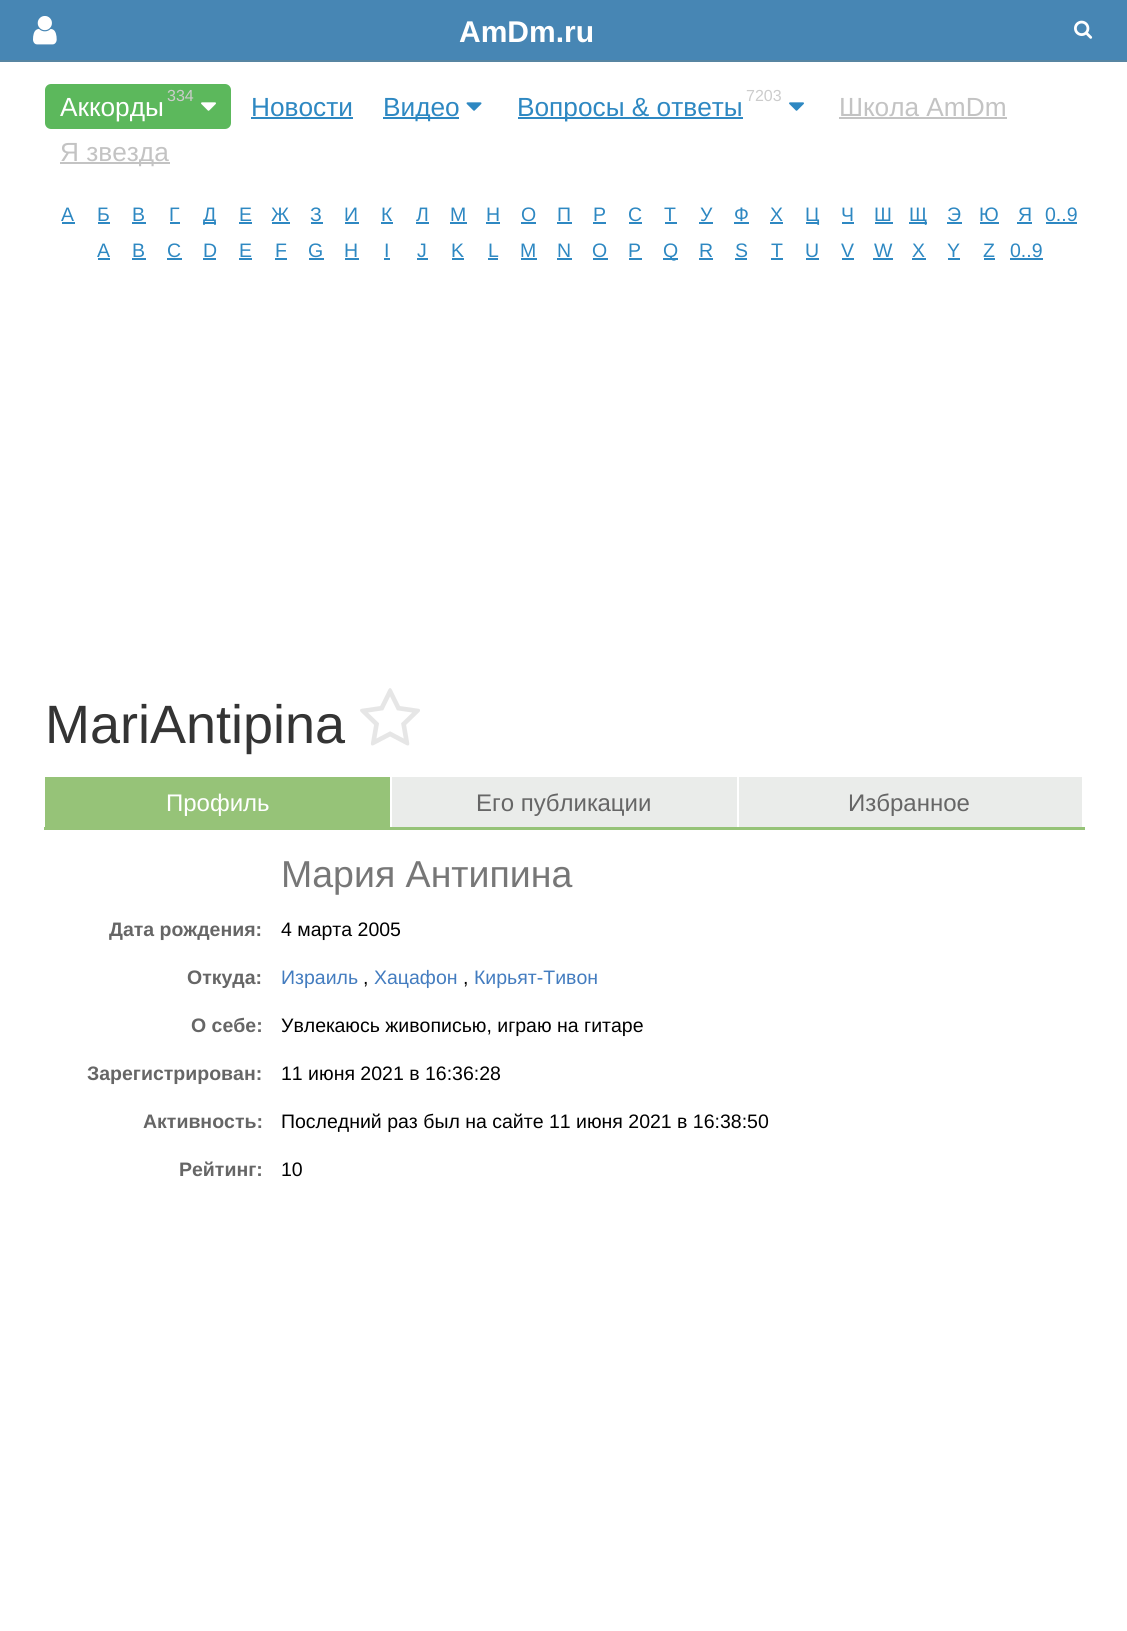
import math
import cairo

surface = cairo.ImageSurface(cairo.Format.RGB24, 1127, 1631)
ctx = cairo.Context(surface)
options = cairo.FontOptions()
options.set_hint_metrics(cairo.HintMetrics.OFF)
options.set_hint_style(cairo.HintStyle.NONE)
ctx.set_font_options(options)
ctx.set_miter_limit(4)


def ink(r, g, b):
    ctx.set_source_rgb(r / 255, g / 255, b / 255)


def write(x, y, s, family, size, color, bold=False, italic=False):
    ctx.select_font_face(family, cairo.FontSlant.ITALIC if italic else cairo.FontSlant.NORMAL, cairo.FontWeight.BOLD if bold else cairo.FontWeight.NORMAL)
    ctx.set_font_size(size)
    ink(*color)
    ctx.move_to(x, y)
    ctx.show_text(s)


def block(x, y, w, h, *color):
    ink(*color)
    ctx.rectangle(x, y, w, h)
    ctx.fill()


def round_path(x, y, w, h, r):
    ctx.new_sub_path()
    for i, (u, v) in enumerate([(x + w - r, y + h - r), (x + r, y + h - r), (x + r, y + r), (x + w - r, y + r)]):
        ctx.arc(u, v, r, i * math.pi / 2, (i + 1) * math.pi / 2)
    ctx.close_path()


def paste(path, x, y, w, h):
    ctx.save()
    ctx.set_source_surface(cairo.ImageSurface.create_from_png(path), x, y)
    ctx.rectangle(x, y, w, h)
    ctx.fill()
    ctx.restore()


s1 = dict(family="Liberation Sans", size=30, color=(255, 255, 255), bold=True)
s2 = dict(family="Liberation Sans", size=26.25, color=(255, 255, 255))
s3 = dict(family="Liberation Sans", size=16, color=(204, 204, 204))
s4 = dict(family="Liberation Sans", size=26.25, color=(46, 136, 194))
s5 = dict(family="Liberation Sans", size=26.25, color=(195, 195, 195))
s6 = dict(family="Liberation Sans", size=19.5, color=(46, 136, 194))
s7 = dict(family="Liberation Sans", size=54, color=(52, 52, 52))
s8 = dict(family="Liberation Sans", size=24, color=(255, 255, 255))
s9 = dict(family="Liberation Sans", size=24, color=(102, 102, 102))
s10 = dict(family="Liberation Sans", size=37.5, color=(119, 119, 119))
s11 = dict(family="Liberation Sans", size=19.5, color=(102, 102, 102), bold=True)
s12 = dict(family="Liberation Sans", size=19.5, color=(0, 0, 0))
s13 = dict(family="Liberation Sans", size=19.5, color=(67, 124, 191))

ink(255, 255, 255)
ctx.paint()
block(0, 0, 1127, 60, 71, 134, 180)
paste("pic1.png", 33, 16, 24, 29)
block(0, 60, 1127, 2, 87, 133, 162)
write(459, 42, "AmDm.ru", **s1)
paste("pic2.png", 1074, 20, 19, 19)
ink(92, 184, 92)
round_path(45, 84, 186, 45, 6)
ctx.fill()
write(60, 116, "Аккорды", **s2)
write(167, 101, "334", **s3)
paste("pic3.png", 201, 102, 15, 9)
write(251, 116, "Новости", **s4)
block(251, 117, 102, 2, 46, 136, 194)
block(383, 117, 76, 2, 46, 136, 194)
write(383, 116, "Видео", **s4)
paste("pic4.png", 466, 102, 16, 9)
block(518, 117, 225, 2, 46, 136, 194)
write(517, 116, "Вопросы & ответы", **s4)
write(746, 101, "7203", **s3)
paste("pic5.png", 789, 102, 15, 9)
write(839, 116, "Школа AmDm", **s5)
block(839, 117, 168, 2, 195, 195, 195)
block(60, 162, 110, 2, 195, 195, 195)
write(60, 161, "Я звезда", **s5)
write(61, 221, "А", **s6)
block(62, 222, 13, 2, 46, 136, 194)
write(97, 221, "Б", **s6)
block(98, 222, 12, 2, 46, 136, 194)
write(132, 221, "В", **s6)
block(132, 222, 14, 2, 46, 136, 194)
write(169, 221, "Г", **s6)
block(170, 222, 10, 2, 46, 136, 194)
block(203, 222, 13, 2, 46, 136, 194)
write(203, 221, "Д", **s6)
write(239, 221, "Е", **s6)
block(239, 222, 13, 2, 46, 136, 194)
write(271, 221, "Ж", **s6)
block(272, 222, 18, 2, 46, 136, 194)
write(310, 221, "З", **s6)
block(311, 222, 12, 2, 46, 136, 194)
write(344, 221, "И", **s6)
block(345, 222, 14, 2, 46, 136, 194)
write(381, 221, "К", **s6)
block(381, 222, 12, 2, 46, 136, 194)
write(416, 221, "Л", **s6)
block(416, 222, 13, 2, 46, 136, 194)
write(450, 221, "М", **s6)
block(450, 222, 17, 2, 46, 136, 194)
write(486, 221, "Н", **s6)
block(486, 222, 14, 2, 46, 136, 194)
write(521, 221, "О", **s6)
block(521, 222, 15, 2, 46, 136, 194)
write(557, 221, "П", **s6)
block(557, 222, 15, 2, 46, 136, 194)
write(593, 221, "Р", **s6)
block(593, 222, 13, 2, 46, 136, 194)
write(628, 221, "С", **s6)
block(629, 222, 13, 2, 46, 136, 194)
write(664, 221, "Т", **s6)
block(665, 222, 12, 2, 46, 136, 194)
write(700, 221, "У", **s6)
block(699, 222, 14, 2, 46, 136, 194)
write(734, 221, "Ф", **s6)
block(734, 222, 15, 2, 46, 136, 194)
write(770, 221, "Х", **s6)
block(770, 222, 13, 2, 46, 136, 194)
block(806, 222, 13, 2, 46, 136, 194)
write(805, 221, "Ц", **s6)
write(841, 221, "Ч", **s6)
block(842, 222, 12, 2, 46, 136, 194)
write(874, 221, "Ш", **s6)
block(875, 222, 18, 2, 46, 136, 194)
block(909, 222, 18, 2, 46, 136, 194)
write(909, 221, "Щ", **s6)
write(947, 221, "Э", **s6)
block(947, 222, 15, 2, 46, 136, 194)
write(979, 221, "Ю", **s6)
block(980, 222, 19, 2, 46, 136, 194)
write(1018, 221, "Я", **s6)
block(1017, 222, 15, 2, 46, 136, 194)
write(1045, 221, "0..9", **s6)
block(1046, 222, 31, 2, 46, 136, 194)
write(97, 257, "A", **s6)
block(98, 258, 12, 2, 46, 136, 194)
write(132, 257, "B", **s6)
block(132, 258, 14, 2, 46, 136, 194)
write(167, 257, "C", **s6)
block(167, 258, 15, 2, 46, 136, 194)
write(203, 257, "D", **s6)
block(203, 258, 13, 2, 46, 136, 194)
write(239, 257, "E", **s6)
block(239, 258, 13, 2, 46, 136, 194)
write(275, 257, "F", **s6)
block(275, 258, 12, 2, 46, 136, 194)
write(308, 257, "G", **s6)
block(309, 258, 15, 2, 46, 136, 194)
write(344, 257, "H", **s6)
block(345, 258, 14, 2, 46, 136, 194)
write(384, 257, "I", **s6)
block(384, 258, 6, 2, 46, 136, 194)
write(417, 257, "J", **s6)
block(417, 258, 11, 2, 46, 136, 194)
write(451, 257, "K", **s6)
block(452, 258, 12, 2, 46, 136, 194)
write(488, 257, "L", **s6)
block(488, 258, 10, 2, 46, 136, 194)
write(520, 257, "M", **s6)
block(521, 258, 16, 2, 46, 136, 194)
write(557, 257, "N", **s6)
block(557, 258, 15, 2, 46, 136, 194)
write(592, 257, "O", **s6)
block(593, 258, 15, 2, 46, 136, 194)
write(628, 257, "P", **s6)
block(629, 258, 13, 2, 46, 136, 194)
block(663, 258, 15, 2, 46, 136, 194)
write(663, 257, "Q", **s6)
write(699, 257, "R", **s6)
block(699, 258, 14, 2, 46, 136, 194)
write(735, 257, "S", **s6)
block(735, 258, 12, 2, 46, 136, 194)
write(771, 257, "T", **s6)
block(771, 258, 12, 2, 46, 136, 194)
write(805, 257, "U", **s6)
block(806, 258, 13, 2, 46, 136, 194)
write(841, 257, "V", **s6)
block(842, 258, 12, 2, 46, 136, 194)
write(874, 257, "W", **s6)
block(873, 258, 20, 2, 46, 136, 194)
write(912, 257, "X", **s6)
block(912, 258, 14, 2, 46, 136, 194)
write(947, 257, "Y", **s6)
block(948, 258, 12, 2, 46, 136, 194)
write(983, 257, "Z", **s6)
block(984, 258, 11, 2, 46, 136, 194)
write(1010, 257, "0..9", **s6)
block(1010, 258, 33, 2, 46, 136, 194)
write(45, 743, "MariAntipina", **s7)
paste("pic6.png", 360, 688, 60, 58)
block(45, 777, 345, 50, 150, 195, 120)
write(166, 811, "Профиль", **s8)
block(392, 777, 345, 50, 234, 236, 234)
write(476, 811, "Его публикации", **s9)
block(739, 777, 343, 50, 234, 236, 234)
block(44, 827, 1041, 3, 150, 195, 120)
write(848, 811, "Избранное", **s9)
write(281, 887, "Мария Антипина", **s10)
write(109, 936, "Дата рождения:", **s11)
write(281, 936, "4 марта 2005", **s12)
write(187, 984, "Откуда:", **s11)
write(281, 984, "Израиль", **s13)
write(363, 984, ",", **s12)
write(374, 984, "Хацафон", **s13)
write(463, 984, ",", **s12)
write(474, 984, "Кирьят-Тивон", **s13)
write(191, 1032, "О себе:", **s11)
write(281, 1032, "Увлекаюсь живописью, играю на гитаре", **s12)
write(87, 1080, "Зарегистрирован:", **s11)
write(281, 1080, "11 июня 2021 в 16:36:28", **s12)
write(143, 1128, "Активность:", **s11)
write(281, 1128, "Последний раз был на сайте 11 июня 2021 в 16:38:50", **s12)
write(179, 1176, "Рейтинг:", **s11)
write(281, 1176, "10", **s12)
surface.write_to_png("screenshot.png")
